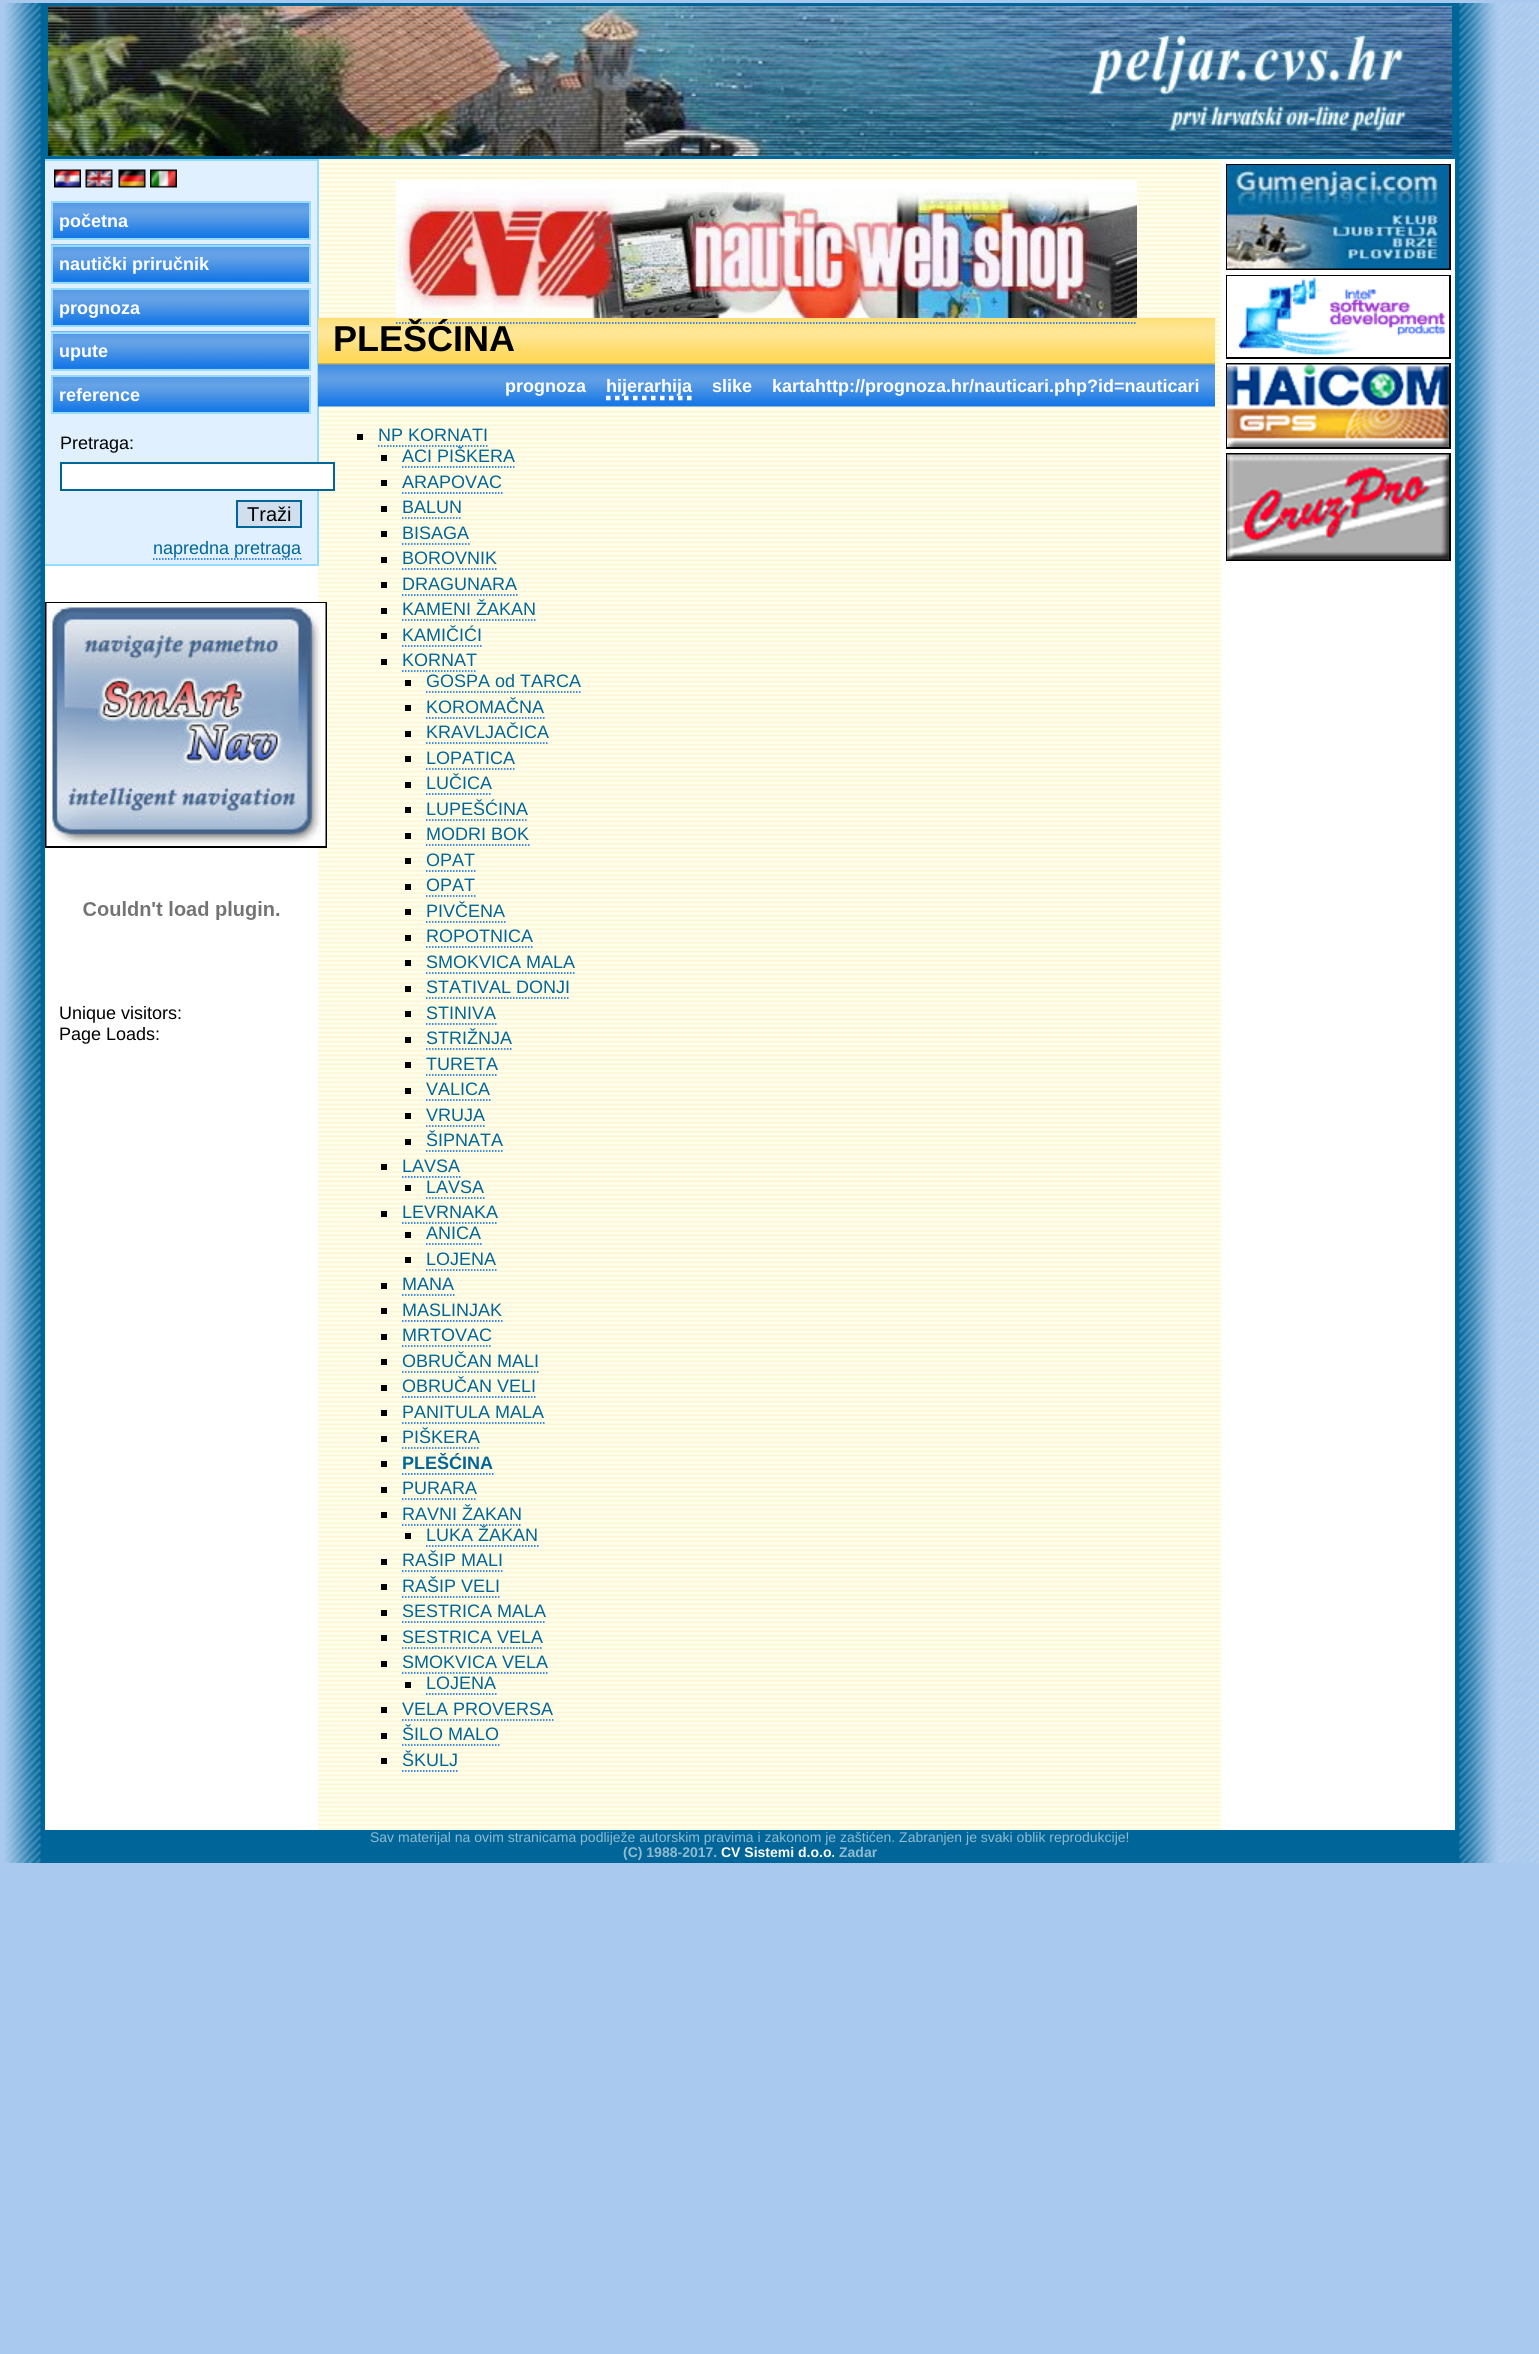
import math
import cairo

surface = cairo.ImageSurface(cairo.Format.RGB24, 1539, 2354)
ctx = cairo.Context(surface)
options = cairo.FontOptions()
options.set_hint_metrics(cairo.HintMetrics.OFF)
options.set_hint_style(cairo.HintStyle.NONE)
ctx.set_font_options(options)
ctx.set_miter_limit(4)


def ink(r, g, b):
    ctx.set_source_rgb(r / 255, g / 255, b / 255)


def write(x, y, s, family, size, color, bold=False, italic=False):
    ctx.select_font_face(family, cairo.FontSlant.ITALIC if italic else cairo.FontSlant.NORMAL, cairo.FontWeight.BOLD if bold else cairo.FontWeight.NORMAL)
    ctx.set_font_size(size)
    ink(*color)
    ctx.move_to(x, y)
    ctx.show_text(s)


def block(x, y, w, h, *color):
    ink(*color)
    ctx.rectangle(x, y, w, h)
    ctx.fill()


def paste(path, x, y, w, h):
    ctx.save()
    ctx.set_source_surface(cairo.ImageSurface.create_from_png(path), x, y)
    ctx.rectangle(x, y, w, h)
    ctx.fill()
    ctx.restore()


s1 = dict(family="Liberation Sans", size=18, color=(255, 255, 255), bold=True)
s2 = dict(family="Liberation Sans", size=18, color=(0, 0, 0))
s3 = dict(family="Liberation Sans", size=20, color=(0, 0, 0))
s4 = dict(family="Liberation Sans", size=18, color=(0, 102, 153))
s5 = dict(family="Liberation Sans", size=36, color=(0, 0, 0), bold=True)
s6 = dict(family="Liberation Sans", size=18, color=(0, 102, 153), bold=True)
s7 = dict(family="Liberation Sans", size=14, color=(144, 187, 209))
s8 = dict(family="Liberation Sans", size=14, color=(144, 187, 209), bold=True)
s9 = dict(family="Liberation Sans", size=14, color=(255, 255, 255), bold=True)

ink(169, 202, 238)
ctx.paint()
paste("pic1.png", 4, 3, 1535, 1860)
paste("pic2.png", 48, 6, 1404, 150)
paste("pic3.png", 45, 159, 1410, 1671)
block(45, 161, 272, 403, 225, 240, 255)
block(45, 159, 273, 2, 147, 220, 255)
block(317, 159, 2, 407, 147, 220, 255)
block(45, 564, 273, 2, 147, 220, 255)
paste("pic4.png", 54, 169, 27, 19)
paste("pic5.png", 85, 169, 28, 19)
paste("pic6.png", 118, 169, 28, 19)
paste("pic7.png", 150, 169, 27, 19)
paste("pic8.png", 53, 203, 256, 35)
ctx.rectangle(52, 202, 258, 37)
ctx.stroke()
write(59, 227, "početna", **s1)
paste("pic9.png", 51, 244, 260, 38)
ctx.rectangle(52, 246, 258, 37)
ink(147, 220, 255)
ctx.stroke()
write(59, 270, "nautički priručnik", **s1)
paste("pic8.png", 53, 290, 256, 35)
ctx.rectangle(52, 289, 258, 37)
ink(147, 220, 255)
ctx.stroke()
write(59, 314, "prognoza", **s1)
paste("pic9.png", 51, 331, 260, 38)
ctx.rectangle(52, 333, 258, 37)
ink(147, 220, 255)
ctx.stroke()
write(59, 357, "upute", **s1)
paste("pic8.png", 53, 377, 256, 35)
ctx.rectangle(52, 376, 258, 37)
ink(147, 220, 255)
ctx.stroke()
write(59, 401, "reference", **s1)
write(60, 449, "Pretraga:", **s2)
ink(255, 255, 255)
ctx.rectangle(61, 463, 273, 27)
ctx.fill_preserve()
ink(0, 102, 153)
ctx.stroke()
ink(208, 222, 237)
ctx.rectangle(237, 501, 64, 26)
ctx.fill_preserve()
ink(0, 102, 153)
ctx.stroke()
write(247, 521, "Traži", **s3)
write(153, 554, "napredna pretraga", **s4)
ctx.new_path()
ctx.move_to(153, 559)
ctx.line_to(301.5, 559)
ink(0, 102, 255)
ctx.set_line_width(1.5)
ctx.set_dash([1.5, 1.5])
ctx.stroke()
block(317, 581, 1, 463, 255, 255, 255)
ctx.rectangle(46, 603, 280, 244)
ink(0, 0, 0)
ctx.set_line_width(2)
ctx.set_dash([])
ctx.stroke()
paste("pic10.png", 46, 603, 280, 243)
paste("pic11.png", 83, 901, 197, 19)
write(59, 1019, "Unique visitors:", **s2)
write(59, 1040, "Page Loads:", **s2)
paste("pic12.png", 396, 180, 741, 138)
paste("pic13.png", 318, 318, 897, 45)
ctx.new_path()
ctx.move_to(396, 323)
ctx.line_to(1137, 323)
ink(0, 102, 255)
ctx.set_line_width(1.5)
ctx.set_dash([1.5, 1.5])
ctx.stroke()
block(318, 363, 897, 2, 204, 176, 80)
write(333, 351, "PLEŠĆINA", **s5)
paste("pic14.png", 318, 364, 897, 43)
write(505, 392, "prognoza", **s1)
ctx.new_path()
ctx.move_to(606, 398)
ctx.line_to(693, 398)
ctx.set_line_width(4.5)
ctx.set_dash([4.5, 4.5])
ctx.stroke()
write(606, 392, "hijerarhija", **s1)
write(712, 392, "slike", **s1)
write(772, 392, "kartahttp://prognoza.hr/nauticari.php?id=nauticari", **s1)
block(357, 434, 6, 6, 0, 0, 0)
write(378, 441, "NP KORNATI", **s4)
ctx.new_path()
ctx.move_to(378, 446)
ctx.line_to(487.5, 446)
ink(0, 102, 255)
ctx.set_line_width(1.5)
ctx.set_dash([1.5, 1.5])
ctx.stroke()
block(381, 455, 6, 6, 0, 0, 0)
write(402, 462, "ACI PIŠKERA", **s4)
ctx.new_path()
ctx.move_to(402, 467)
ctx.line_to(514.5, 467)
ink(0, 102, 255)
ctx.stroke()
block(381, 480, 6, 6, 0, 0, 0)
write(402, 488, "ARAPOVAC", **s4)
ctx.new_path()
ctx.move_to(402, 493)
ctx.line_to(502.5, 493)
ink(0, 102, 255)
ctx.stroke()
block(381, 506, 6, 6, 0, 0, 0)
write(402, 513, "BALUN", **s4)
ctx.new_path()
ctx.move_to(402, 518)
ctx.line_to(462, 518)
ink(0, 102, 255)
ctx.stroke()
block(381, 531, 6, 6, 0, 0, 0)
write(402, 539, "BISAGA", **s4)
ctx.new_path()
ctx.move_to(402, 544)
ctx.line_to(469.5, 544)
ink(0, 102, 255)
ctx.stroke()
block(381, 557, 6, 6, 0, 0, 0)
write(402, 564, "BOROVNIK", **s4)
ctx.new_path()
ctx.move_to(402, 569)
ctx.line_to(496.5, 569)
ink(0, 102, 255)
ctx.stroke()
block(381, 582, 6, 6, 0, 0, 0)
write(402, 590, "DRAGUNARA", **s4)
ctx.new_path()
ctx.move_to(402, 595)
ctx.line_to(517.5, 595)
ink(0, 102, 255)
ctx.stroke()
block(381, 608, 6, 6, 0, 0, 0)
write(402, 615, "KAMENI ŽAKAN", **s4)
ctx.new_path()
ctx.move_to(402, 620)
ctx.line_to(535.5, 620)
ink(0, 102, 255)
ctx.stroke()
block(381, 633, 6, 6, 0, 0, 0)
write(402, 641, "KAMIČIĆI", **s4)
ctx.new_path()
ctx.move_to(402, 646)
ctx.line_to(481.5, 646)
ink(0, 102, 255)
ctx.stroke()
block(381, 659, 6, 6, 0, 0, 0)
write(402, 666, "KORNAT", **s4)
ctx.new_path()
ctx.move_to(402, 671)
ctx.line_to(477, 671)
ink(0, 102, 255)
ctx.stroke()
block(405, 680, 6, 6, 0, 0, 0)
write(426, 687, "GOSPA od TARCA", **s4)
ctx.new_path()
ctx.move_to(426, 692)
ctx.line_to(580.5, 692)
ink(0, 102, 255)
ctx.stroke()
block(405, 705, 6, 6, 0, 0, 0)
write(426, 713, "KOROMAČNA", **s4)
ctx.new_path()
ctx.move_to(426, 718)
ctx.line_to(544.5, 718)
ink(0, 102, 255)
ctx.stroke()
block(405, 731, 6, 6, 0, 0, 0)
write(426, 738, "KRAVLJAČICA", **s4)
ctx.new_path()
ctx.move_to(426, 743)
ctx.line_to(549, 743)
ink(0, 102, 255)
ctx.stroke()
block(405, 756, 6, 6, 0, 0, 0)
write(426, 764, "LOPATICA", **s4)
ctx.new_path()
ctx.move_to(426, 769)
ctx.line_to(514.5, 769)
ink(0, 102, 255)
ctx.stroke()
block(405, 782, 6, 6, 0, 0, 0)
write(426, 789, "LUČICA", **s4)
ctx.new_path()
ctx.move_to(426, 794)
ctx.line_to(492, 794)
ink(0, 102, 255)
ctx.stroke()
block(405, 807, 6, 6, 0, 0, 0)
write(426, 815, "LUPEŠĆINA", **s4)
ctx.new_path()
ctx.move_to(426, 820)
ctx.line_to(528, 820)
ink(0, 102, 255)
ctx.stroke()
block(405, 833, 6, 6, 0, 0, 0)
write(426, 840, "MODRI BOK", **s4)
ctx.new_path()
ctx.move_to(426, 845)
ctx.line_to(529.5, 845)
ink(0, 102, 255)
ctx.stroke()
block(405, 858, 6, 6, 0, 0, 0)
write(426, 866, "OPAT", **s4)
ctx.new_path()
ctx.move_to(426, 871)
ctx.line_to(475.5, 871)
ink(0, 102, 255)
ctx.stroke()
block(405, 884, 6, 6, 0, 0, 0)
write(426, 891, "OPAT", **s4)
ctx.new_path()
ctx.move_to(426, 896)
ctx.line_to(475.5, 896)
ink(0, 102, 255)
ctx.stroke()
block(405, 909, 6, 6, 0, 0, 0)
write(426, 917, "PIVČENA", **s4)
ctx.new_path()
ctx.move_to(426, 922)
ctx.line_to(505.5, 922)
ink(0, 102, 255)
ctx.stroke()
block(405, 935, 6, 6, 0, 0, 0)
write(426, 942, "ROPOTNICA", **s4)
ctx.new_path()
ctx.move_to(426, 947)
ctx.line_to(532.5, 947)
ink(0, 102, 255)
ctx.stroke()
block(405, 960, 6, 6, 0, 0, 0)
write(426, 968, "SMOKVICA MALA", **s4)
ctx.new_path()
ctx.move_to(426, 973)
ctx.line_to(574.5, 973)
ink(0, 102, 255)
ctx.stroke()
block(405, 986, 6, 6, 0, 0, 0)
write(426, 993, "STATIVAL DONJI", **s4)
ctx.new_path()
ctx.move_to(426, 998)
ctx.line_to(570, 998)
ink(0, 102, 255)
ctx.stroke()
block(405, 1011, 6, 6, 0, 0, 0)
write(426, 1019, "STINIVA", **s4)
ctx.new_path()
ctx.move_to(426, 1024)
ctx.line_to(496.5, 1024)
ink(0, 102, 255)
ctx.stroke()
block(405, 1037, 6, 6, 0, 0, 0)
write(426, 1044, "STRIŽNJA", **s4)
ctx.new_path()
ctx.move_to(426, 1049)
ctx.line_to(511.5, 1049)
ink(0, 102, 255)
ctx.stroke()
block(405, 1062, 6, 6, 0, 0, 0)
write(426, 1070, "TURETA", **s4)
ctx.new_path()
ctx.move_to(426, 1075)
ctx.line_to(498, 1075)
ink(0, 102, 255)
ctx.stroke()
block(405, 1088, 6, 6, 0, 0, 0)
write(426, 1095, "VALICA", **s4)
ctx.new_path()
ctx.move_to(426, 1100)
ctx.line_to(490.5, 1100)
ink(0, 102, 255)
ctx.stroke()
block(405, 1113, 6, 6, 0, 0, 0)
write(426, 1121, "VRUJA", **s4)
ctx.new_path()
ctx.move_to(426, 1126)
ctx.line_to(484.5, 1126)
ink(0, 102, 255)
ctx.stroke()
block(405, 1139, 6, 6, 0, 0, 0)
write(426, 1146, "ŠIPNATA", **s4)
ctx.new_path()
ctx.move_to(426, 1151)
ctx.line_to(502.5, 1151)
ink(0, 102, 255)
ctx.stroke()
block(381, 1164, 6, 6, 0, 0, 0)
write(402, 1172, "LAVSA", **s4)
ctx.new_path()
ctx.move_to(402, 1177)
ctx.line_to(460.5, 1177)
ink(0, 102, 255)
ctx.stroke()
block(405, 1185, 6, 6, 0, 0, 0)
write(426, 1193, "LAVSA", **s4)
ctx.new_path()
ctx.move_to(426, 1198)
ctx.line_to(484.5, 1198)
ink(0, 102, 255)
ctx.stroke()
block(381, 1211, 6, 6, 0, 0, 0)
write(402, 1218, "LEVRNAKA", **s4)
ctx.new_path()
ctx.move_to(402, 1223)
ctx.line_to(498, 1223)
ink(0, 102, 255)
ctx.stroke()
block(405, 1232, 6, 6, 0, 0, 0)
write(426, 1239, "ANICA", **s4)
ctx.new_path()
ctx.move_to(426, 1244)
ctx.line_to(481.5, 1244)
ink(0, 102, 255)
ctx.stroke()
block(405, 1257, 6, 6, 0, 0, 0)
write(426, 1265, "LOJENA", **s4)
ctx.new_path()
ctx.move_to(426, 1270)
ctx.line_to(496.5, 1270)
ink(0, 102, 255)
ctx.stroke()
block(381, 1283, 6, 6, 0, 0, 0)
write(402, 1290, "MANA", **s4)
ctx.new_path()
ctx.move_to(402, 1295)
ctx.line_to(454.5, 1295)
ink(0, 102, 255)
ctx.stroke()
block(381, 1308, 6, 6, 0, 0, 0)
write(402, 1316, "MASLINJAK", **s4)
ctx.new_path()
ctx.move_to(402, 1321)
ctx.line_to(502.5, 1321)
ink(0, 102, 255)
ctx.stroke()
block(381, 1334, 6, 6, 0, 0, 0)
write(402, 1341, "MRTOVAC", **s4)
ctx.new_path()
ctx.move_to(402, 1346)
ctx.line_to(492, 1346)
ink(0, 102, 255)
ctx.stroke()
block(381, 1359, 6, 6, 0, 0, 0)
write(402, 1367, "OBRUČAN MALI", **s4)
ctx.new_path()
ctx.move_to(402, 1372)
ctx.line_to(538.5, 1372)
ink(0, 102, 255)
ctx.stroke()
block(381, 1385, 6, 6, 0, 0, 0)
write(402, 1392, "OBRUČAN VELI", **s4)
ctx.new_path()
ctx.move_to(402, 1397)
ctx.line_to(535.5, 1397)
ink(0, 102, 255)
ctx.stroke()
block(381, 1410, 6, 6, 0, 0, 0)
write(402, 1418, "PANITULA MALA", **s4)
ctx.new_path()
ctx.move_to(402, 1423)
ctx.line_to(544.5, 1423)
ink(0, 102, 255)
ctx.stroke()
block(381, 1436, 6, 6, 0, 0, 0)
write(402, 1443, "PIŠKERA", **s4)
ctx.new_path()
ctx.move_to(402, 1448)
ctx.line_to(480, 1448)
ink(0, 102, 255)
ctx.stroke()
block(381, 1461, 6, 6, 0, 0, 0)
write(402, 1469, "PLEŠĆINA", **s6)
ctx.new_path()
ctx.move_to(402, 1474)
ctx.line_to(493.5, 1474)
ink(0, 102, 255)
ctx.stroke()
block(381, 1487, 6, 6, 0, 0, 0)
write(402, 1494, "PURARA", **s4)
ctx.new_path()
ctx.move_to(402, 1499)
ctx.line_to(477, 1499)
ink(0, 102, 255)
ctx.stroke()
block(381, 1512, 6, 6, 0, 0, 0)
write(402, 1520, "RAVNI ŽAKAN", **s4)
ctx.new_path()
ctx.move_to(402, 1525)
ctx.line_to(522, 1525)
ink(0, 102, 255)
ctx.stroke()
block(405, 1533, 6, 6, 0, 0, 0)
write(426, 1541, "LUKA ŽAKAN", **s4)
ctx.new_path()
ctx.move_to(426, 1546)
ctx.line_to(538.5, 1546)
ink(0, 102, 255)
ctx.stroke()
block(381, 1559, 6, 6, 0, 0, 0)
write(402, 1566, "RAŠIP MALI", **s4)
ctx.new_path()
ctx.move_to(402, 1571)
ctx.line_to(502.5, 1571)
ink(0, 102, 255)
ctx.stroke()
block(381, 1584, 6, 6, 0, 0, 0)
write(402, 1592, "RAŠIP VELI", **s4)
ctx.new_path()
ctx.move_to(402, 1597)
ctx.line_to(499.5, 1597)
ink(0, 102, 255)
ctx.stroke()
block(381, 1610, 6, 6, 0, 0, 0)
write(402, 1617, "SESTRICA MALA", **s4)
ctx.new_path()
ctx.move_to(402, 1622)
ctx.line_to(546, 1622)
ink(0, 102, 255)
ctx.stroke()
block(381, 1635, 6, 6, 0, 0, 0)
write(402, 1643, "SESTRICA VELA", **s4)
ctx.new_path()
ctx.move_to(402, 1648)
ctx.line_to(543, 1648)
ink(0, 102, 255)
ctx.stroke()
block(381, 1661, 6, 6, 0, 0, 0)
write(402, 1668, "SMOKVICA VELA", **s4)
ctx.new_path()
ctx.move_to(402, 1673)
ctx.line_to(547.5, 1673)
ink(0, 102, 255)
ctx.stroke()
block(405, 1682, 6, 6, 0, 0, 0)
write(426, 1689, "LOJENA", **s4)
ctx.new_path()
ctx.move_to(426, 1694)
ctx.line_to(496.5, 1694)
ink(0, 102, 255)
ctx.stroke()
block(381, 1707, 6, 6, 0, 0, 0)
write(402, 1715, "VELA PROVERSA", **s4)
ctx.new_path()
ctx.move_to(402, 1720)
ctx.line_to(553.5, 1720)
ink(0, 102, 255)
ctx.stroke()
block(381, 1733, 6, 6, 0, 0, 0)
write(402, 1740, "ŠILO MALO", **s4)
ctx.new_path()
ctx.move_to(402, 1745)
ctx.line_to(499.5, 1745)
ink(0, 102, 255)
ctx.stroke()
block(381, 1758, 6, 6, 0, 0, 0)
write(402, 1766, "ŠKULJ", **s4)
ctx.new_path()
ctx.move_to(402, 1771)
ctx.line_to(457.5, 1771)
ink(0, 102, 255)
ctx.stroke()
ctx.rectangle(1227, 165, 223, 104)
ink(0, 0, 0)
ctx.set_line_width(2)
ctx.set_dash([])
ctx.stroke()
paste("pic15.png", 1227, 165, 222, 104)
ctx.rectangle(1227, 276, 223, 82)
ctx.stroke()
paste("pic16.png", 1227, 276, 222, 81)
ctx.rectangle(1227, 364, 223, 84)
ctx.stroke()
paste("pic17.png", 1227, 364, 222, 83)
ctx.rectangle(1227, 454, 223, 106)
ctx.stroke()
paste("pic18.png", 1227, 454, 222, 106)
write(370, 1842, "Sav materijal na ovim stranicama podliježe autorskim pravima i zakonom je zaštićen. Zabranjen je svaki oblik reprodukcije!", **s7)
write(623, 1857, "(C) 1988-2017.", **s8)
write(721, 1857, "CV Sistemi d.o.o.", **s9)
write(839, 1857, "Zadar", **s8)
surface.write_to_png("screenshot.png")
